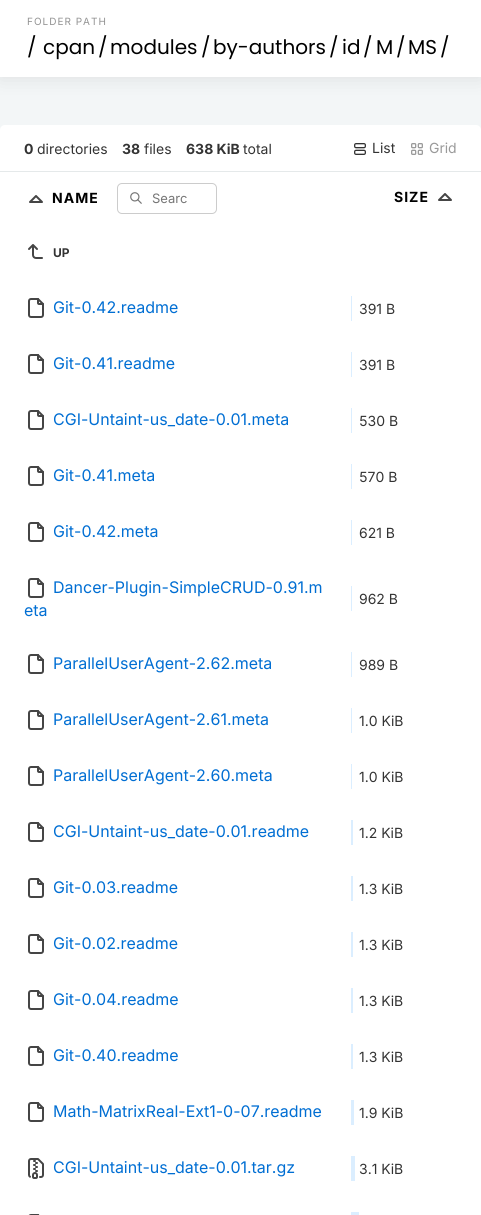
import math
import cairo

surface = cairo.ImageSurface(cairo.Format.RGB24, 481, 1215)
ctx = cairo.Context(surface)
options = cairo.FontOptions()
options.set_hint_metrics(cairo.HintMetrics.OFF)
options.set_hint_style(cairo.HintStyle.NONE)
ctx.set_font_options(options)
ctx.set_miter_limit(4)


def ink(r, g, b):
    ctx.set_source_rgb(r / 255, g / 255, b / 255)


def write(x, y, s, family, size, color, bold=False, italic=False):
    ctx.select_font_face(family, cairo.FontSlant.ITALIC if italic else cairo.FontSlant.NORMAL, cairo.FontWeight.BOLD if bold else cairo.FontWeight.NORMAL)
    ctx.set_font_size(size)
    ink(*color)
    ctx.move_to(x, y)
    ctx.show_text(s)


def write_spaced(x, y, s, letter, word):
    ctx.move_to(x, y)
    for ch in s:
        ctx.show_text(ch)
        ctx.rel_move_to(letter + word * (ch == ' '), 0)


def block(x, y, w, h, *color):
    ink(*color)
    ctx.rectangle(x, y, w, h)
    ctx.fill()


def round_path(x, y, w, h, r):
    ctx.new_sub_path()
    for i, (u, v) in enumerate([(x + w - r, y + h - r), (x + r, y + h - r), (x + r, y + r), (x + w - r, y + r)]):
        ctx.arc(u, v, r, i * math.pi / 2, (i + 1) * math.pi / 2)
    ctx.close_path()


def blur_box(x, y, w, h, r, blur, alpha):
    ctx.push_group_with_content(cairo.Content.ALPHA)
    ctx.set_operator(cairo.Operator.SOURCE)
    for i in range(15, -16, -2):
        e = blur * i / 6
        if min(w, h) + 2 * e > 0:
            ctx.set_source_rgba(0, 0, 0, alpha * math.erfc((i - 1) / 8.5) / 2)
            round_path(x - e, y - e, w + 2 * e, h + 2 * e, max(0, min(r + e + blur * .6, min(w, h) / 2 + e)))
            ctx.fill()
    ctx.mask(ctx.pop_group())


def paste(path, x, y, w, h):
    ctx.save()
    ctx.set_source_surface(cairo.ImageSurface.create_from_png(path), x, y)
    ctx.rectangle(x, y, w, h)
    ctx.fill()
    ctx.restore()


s1 = dict(family="Poppins", size=20, color=(0, 0, 0))
s2 = dict(family="Inter", size=14, color=(51, 51, 51), bold=True)
s3 = dict(family="Inter", size=14, color=(51, 51, 51))
s4 = dict(family="Inter", size=14, color=(154, 154, 154))
s5 = dict(family="Inter", size=13, color=(117, 117, 117))
s6 = dict(family="Inter", size=12, color=(51, 51, 51), bold=True)
s7 = dict(family="Inter", size=16, color=(0, 110, 211))

ink(243, 246, 247)
ctx.paint()
ink(0, 0, 0)
blur_box(0, 0, 481, 77, 0, 10, 0.1)
block(0, 0, 481, 77, 255, 255, 255)
ctx.select_font_face("Inter")
ctx.set_font_size(10)
ink(147, 147, 147)
write_spaced(27, 25, "FOLDER PATH", 1, 0)
write(27, 54, "/", **s1)
write(43, 54, "cpan", **s1)
write(98, 54, "/", **s1)
write(110, 54, "modules", **s1)
write(201, 54, "/", **s1)
write(213, 54, "by-authors", **s1)
write(329, 54, "/", **s1)
write(342, 54, "id", **s1)
write(363, 54, "/", **s1)
write(376, 54, "M", **s1)
write(396, 54, "/", **s1)
write(408, 54, "MS", **s1)
write(440, 54, "/", **s1)
ink(255, 255, 255)
round_path(0, 125, 481, 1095, 5)
ctx.fill()
block(0, 171, 481, 1, 229, 233, 234)
write(24, 154, "0", **s2)
write(37, 154, "directories", **s3)
write(122, 154, "38", **s2)
write(144, 154, "files", **s3)
write(186, 154, "638 KiB", **s2)
write(243, 154, "total", **s3)
paste("pic1.png", 354, 143, 12, 12)
write(372, 153, "List", **s3)
paste("pic2.png", 411, 143, 12, 12)
write(429, 153, "Grid", **s4)
ctx.new_path()
ctx.move_to(42, 202)
ctx.line_to(36, 196)
ctx.line_to(30, 202)
ctx.line_to(42, 202)
ink(69, 69, 69)
ctx.set_line_cap(cairo.LineCap.ROUND)
ctx.set_line_join(cairo.LineJoin.ROUND)
ctx.stroke()
ctx.select_font_face("Inter", cairo.FontSlant.NORMAL, cairo.FontWeight.BOLD)
ink(0, 0, 0)
write_spaced(52, 203, "NAME", 1, 0)
paste("pic3.png", 130, 192, 12, 12)
round_path(117.5, 183.5, 99, 30, 4.5)
ink(204, 204, 204)
ctx.set_line_width(1)
ctx.set_line_cap(cairo.LineCap.BUTT)
ctx.set_line_join(cairo.LineJoin.MITER)
ctx.stroke()
write(152, 203, "Searc", **s5)
ctx.select_font_face("Inter", cairo.FontSlant.NORMAL, cairo.FontWeight.BOLD)
ctx.set_font_size(14)
ink(0, 0, 0)
write_spaced(394, 202, "SIZE", 1, 0)
ctx.new_path()
ctx.move_to(451, 200)
ctx.line_to(445, 194)
ctx.line_to(439, 200)
ctx.line_to(451, 200)
ink(69, 69, 69)
ctx.set_line_width(2)
ctx.set_line_cap(cairo.LineCap.ROUND)
ctx.set_line_join(cairo.LineJoin.ROUND)
ctx.stroke()
paste("pic4.png", 28, 244, 15, 15)
write(53, 257, "UP", **s6)
paste("pic5.png", 28, 298, 16, 20)
write(53, 313, "Git-0.42.readme", **s7)
block(351, 296, 1, 25, 219, 238, 255)
write(359, 314, "391 B", **s3)
paste("pic5.png", 28, 354, 16, 20)
write(53, 369, "Git-0.41.readme", **s7)
block(351, 352, 1, 25, 219, 238, 255)
write(359, 370, "391 B", **s3)
paste("pic5.png", 28, 410, 16, 20)
write(53, 425, "CGI-Untaint-us_date-0.01.meta", **s7)
block(351, 408, 1, 25, 219, 238, 255)
write(359, 426, "530 B", **s3)
paste("pic5.png", 28, 466, 16, 20)
write(53, 481, "Git-0.41.meta", **s7)
block(351, 464, 1, 25, 219, 238, 255)
write(359, 482, "570 B", **s3)
paste("pic5.png", 28, 522, 16, 20)
write(53, 537, "Git-0.42.meta", **s7)
block(351, 520, 1, 25, 219, 238, 255)
write(359, 538, "621 B", **s3)
paste("pic5.png", 28, 578, 16, 20)
write(53, 593, "Dancer-Plugin-SimpleCRUD-0.91.m", **s7)
write(24, 616, "eta", **s7)
block(351, 586, 1, 25, 219, 238, 255)
write(359, 604, "962 B", **s3)
paste("pic5.png", 28, 654, 16, 20)
write(53, 669, "ParallelUserAgent-2.62.meta", **s7)
block(351, 652, 1, 25, 219, 238, 255)
write(359, 670, "989 B", **s3)
paste("pic5.png", 28, 710, 16, 20)
write(53, 725, "ParallelUserAgent-2.61.meta", **s7)
block(351, 708, 1, 25, 219, 238, 255)
write(359, 726, "1.0 KiB", **s3)
paste("pic5.png", 28, 766, 16, 20)
write(53, 781, "ParallelUserAgent-2.60.meta", **s7)
block(351, 764, 1, 25, 219, 238, 255)
write(359, 782, "1.0 KiB", **s3)
paste("pic5.png", 28, 822, 16, 20)
write(53, 837, "CGI-Untaint-us_date-0.01.readme", **s7)
block(351, 820, 2, 25, 219, 238, 255)
write(359, 838, "1.2 KiB", **s3)
paste("pic5.png", 28, 878, 16, 20)
write(53, 893, "Git-0.03.readme", **s7)
block(351, 876, 2, 25, 219, 238, 255)
write(359, 894, "1.3 KiB", **s3)
paste("pic5.png", 28, 934, 16, 20)
write(53, 949, "Git-0.02.readme", **s7)
block(351, 932, 2, 25, 219, 238, 255)
write(359, 950, "1.3 KiB", **s3)
paste("pic5.png", 28, 990, 16, 20)
write(53, 1005, "Git-0.04.readme", **s7)
block(351, 988, 2, 25, 219, 238, 255)
write(359, 1006, "1.3 KiB", **s3)
paste("pic5.png", 28, 1046, 16, 20)
write(53, 1061, "Git-0.40.readme", **s7)
block(351, 1044, 2, 25, 219, 238, 255)
write(359, 1062, "1.3 KiB", **s3)
paste("pic5.png", 28, 1102, 16, 20)
write(53, 1117, "Math-MatrixReal-Ext1-0-07.readme", **s7)
block(351, 1100, 3, 25, 219, 238, 255)
write(359, 1118, "1.9 KiB", **s3)
paste("pic6.png", 28, 1158, 16, 21)
write(53, 1173, "CGI-Untaint-us_date-0.01.tar.gz", **s7)
block(351, 1156, 4, 25, 219, 238, 255)
write(359, 1174, "3.1 KiB", **s3)
paste("pic7.png", 28, 1214, 12, 1)
block(351, 1212, 8, 3, 219, 238, 255)
surface.write_to_png("screenshot.png")
